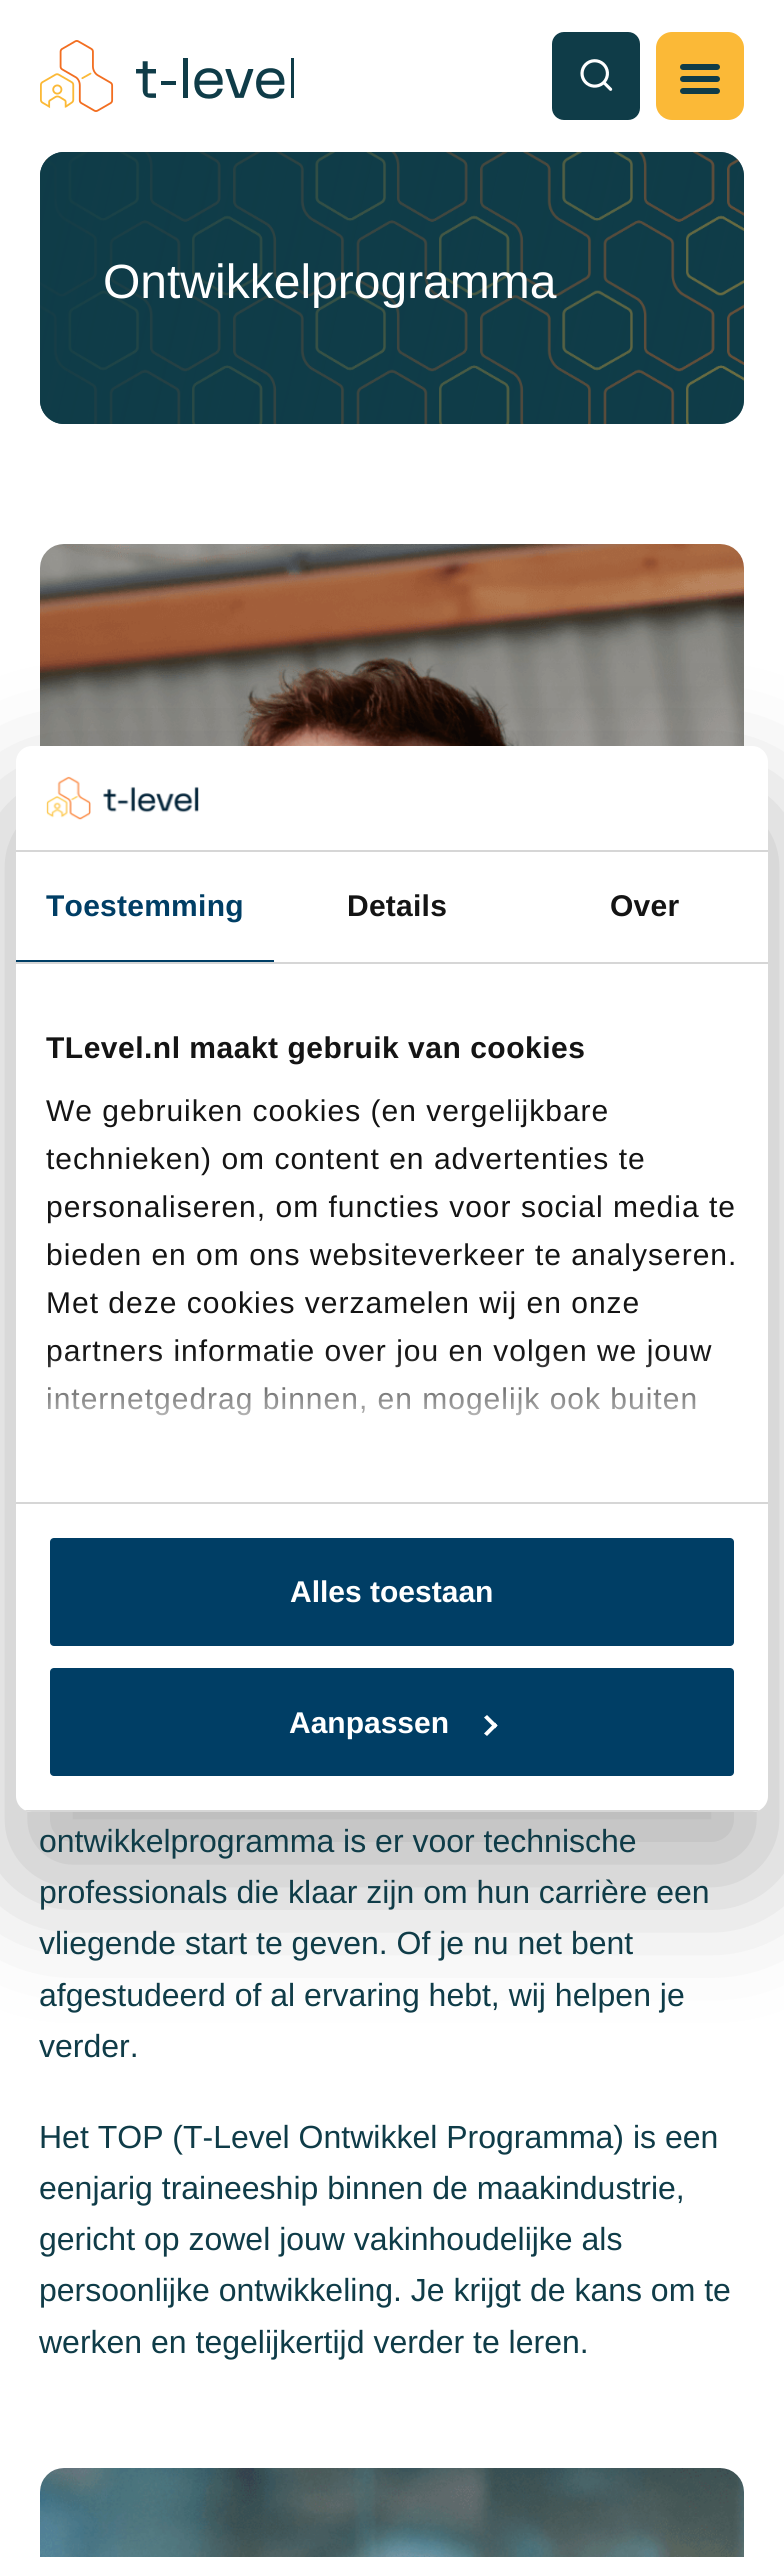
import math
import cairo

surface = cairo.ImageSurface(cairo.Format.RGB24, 784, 2557)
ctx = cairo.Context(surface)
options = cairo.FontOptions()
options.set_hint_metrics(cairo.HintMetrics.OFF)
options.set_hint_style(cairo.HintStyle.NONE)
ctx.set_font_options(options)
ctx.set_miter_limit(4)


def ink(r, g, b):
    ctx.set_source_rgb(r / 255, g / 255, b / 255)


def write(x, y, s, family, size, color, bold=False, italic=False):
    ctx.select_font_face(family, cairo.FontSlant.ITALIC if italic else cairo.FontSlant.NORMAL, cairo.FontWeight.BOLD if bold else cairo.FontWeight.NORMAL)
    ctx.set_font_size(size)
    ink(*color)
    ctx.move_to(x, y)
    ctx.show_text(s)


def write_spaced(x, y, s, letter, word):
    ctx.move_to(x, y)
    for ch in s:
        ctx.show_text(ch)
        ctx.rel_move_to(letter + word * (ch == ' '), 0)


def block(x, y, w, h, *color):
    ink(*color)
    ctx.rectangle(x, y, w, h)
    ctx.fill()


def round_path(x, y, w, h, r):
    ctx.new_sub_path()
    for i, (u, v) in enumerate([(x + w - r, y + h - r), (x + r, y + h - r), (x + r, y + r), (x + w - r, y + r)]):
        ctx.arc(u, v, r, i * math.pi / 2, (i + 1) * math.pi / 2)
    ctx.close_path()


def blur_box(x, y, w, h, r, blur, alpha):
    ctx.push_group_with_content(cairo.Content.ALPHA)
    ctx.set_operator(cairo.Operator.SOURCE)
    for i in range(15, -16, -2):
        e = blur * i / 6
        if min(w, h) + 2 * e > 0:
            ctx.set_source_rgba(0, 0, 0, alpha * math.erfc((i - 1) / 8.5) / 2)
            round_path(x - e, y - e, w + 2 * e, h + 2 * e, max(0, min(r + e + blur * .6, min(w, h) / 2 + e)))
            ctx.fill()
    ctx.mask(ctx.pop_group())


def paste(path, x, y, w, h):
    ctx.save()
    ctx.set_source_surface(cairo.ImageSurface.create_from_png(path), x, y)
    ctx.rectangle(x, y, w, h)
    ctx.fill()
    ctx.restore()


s1 = dict(family="Liberation Sans", size=48, color=(255, 255, 255))
s2 = dict(family="Liberation Sans", size=30, color=(255, 255, 255), bold=True)
s3 = dict(family="Liberation Sans", size=32, color=(15, 60, 72))

ink(255, 255, 255)
ctx.paint()
paste("pic1.png", 40, 40, 254, 72)
ink(15, 60, 72)
round_path(552, 32, 88, 88, 12)
ctx.fill()
paste("pic2.png", 580, 59, 33, 32)
ink(251, 185, 55)
round_path(656, 32, 88, 88, 16)
ctx.fill()
ink(15, 60, 72)
round_path(680, 76, 40, 6, 3)
ctx.fill()
round_path(680, 64, 40, 6, 3)
ctx.fill()
round_path(680, 88, 40, 6, 3)
ctx.fill()
round_path(40, 152, 704, 272, 24)
ctx.fill()
paste("pic3.png", 40, 152, 704, 272)
gradient = cairo.LinearGradient(28, 204, 756, 372)
gradient.add_color_stop_rgba(0, 0.059, 0.235, 0.282, 1)
gradient.add_color_stop_rgba(1, 0.059, 0.235, 0.282, 0.6)
ctx.set_source(gradient)
round_path(40, 152, 704, 272, 24)
ctx.fill()
write(103, 298, "Ontwikkelprogramma", **s1)
paste("pic5.png", 40, 544, 704, 202)
ink(0, 0, 0)
blur_box(16, 810, 752, 1066, 16, 68, 0.3)
ink(255, 255, 255)
round_path(16, 746, 752, 1066, 16)
ctx.fill()
block(16, 850, 752, 2, 214, 214, 214)
paste("pic4.png", 46, 776, 153, 44)
block(16, 962, 752, 2, 214, 214, 214)
block(16, 960, 258, 2, 0, 62, 101)
ctx.select_font_face("Liberation Sans", cairo.FontSlant.NORMAL, cairo.FontWeight.BOLD)
ctx.set_font_size(30)
write_spaced(46, 916, "Toestemming", 0.25, 0)
ink(20, 20, 20)
write_spaced(347, 916, "Details", 0.25, 0)
write_spaced(610, 916, "Over", 0.25, 0)
block(16, 1502, 752, 2, 214, 214, 214)
ink(20, 20, 20)
write_spaced(46, 1058, "TLevel.nl maakt gebruik van cookies", 0.5, 0)
ctx.select_font_face("Liberation Sans")
write_spaced(46, 1121, "We gebruiken cookies (en vergelijkbare", 1, 0)
write_spaced(46, 1169, "technieken) om content en advertenties te", 1, 0)
write_spaced(46, 1217, "personaliseren, om functies voor social media te", 1, 0)
write_spaced(46, 1265, "bieden en om ons websiteverkeer te analyseren.", 1, 0)
write_spaced(46, 1313, "Met deze cookies verzamelen wij en onze", 1, 0)
write_spaced(46, 1361, "partners informatie over jou en volgen we jouw", 1, 0)
write_spaced(46, 1409, "internetgedrag binnen, en mogelijk ook buiten", 1, 0)
gradient = cairo.LinearGradient(379, 1502, 379, 1352)
gradient.add_color_stop_rgba(0, 1, 1, 1, 1)
gradient.add_color_stop_rgba(0.5, 1, 1, 1, 0.8)
gradient.add_color_stop_rgba(1, 1, 1, 1, 0)
ctx.set_source(gradient)
ctx.rectangle(48, 1354, 661, 62)
ctx.fill()
ctx.save()
round_path(16, 746, 752, 1066, 16)
ctx.clip()
block(16, 1810, 752, 2, 214, 214, 214)
ctx.restore()
ink(0, 62, 101)
round_path(48, 1536, 688, 112, 6)
ctx.fill_preserve()
ink(255, 255, 255)
ctx.set_line_width(4)
ctx.stroke()
write(290, 1602, "Alles toestaan", **s2)
ink(0, 62, 101)
round_path(48, 1666, 688, 112, 6)
ctx.fill_preserve()
ink(255, 255, 255)
ctx.stroke()
write(289, 1733, "Aanpassen", **s2)
ctx.new_path()
ctx.move_to(487, 1715)
ctx.line_to(497.5, 1725.5)
ctx.line_to(495, 1728.5)
ctx.line_to(484, 1717.5)
ctx.close_path()
ctx.fill()
ctx.new_path()
ctx.move_to(495, 1722.5)
ctx.line_to(497.5, 1725.5)
ctx.line_to(487, 1736)
ctx.line_to(484, 1733.5)
ctx.close_path()
ctx.fill()
write(39, 1852, "ontwikkelprogramma is er voor technische", **s3)
write(39, 1903, "professionals die klaar zijn om hun carrière een", **s3)
write(39, 1954, "vliegende start te geven. Of je nu net bent", **s3)
write(39, 2006, "afgestudeerd of al ervaring hebt, wij helpen je", **s3)
write(39, 2057, "verder.", **s3)
write(39, 2148, "Het TOP (T-Level Ontwikkel Programma) is een", **s3)
write(39, 2199, "eenjarig traineeship binnen de maakindustrie,", **s3)
write(39, 2250, "gericht op zowel jouw vakinhoudelijke als", **s3)
write(39, 2301, "persoonlijke ontwikkeling. Je krijgt de kans om te", **s3)
write(39, 2353, "werken en tegelijkertijd verder te leren.", **s3)
paste("pic6.png", 40, 2468, 704, 89)
surface.write_to_png("screenshot.png")
